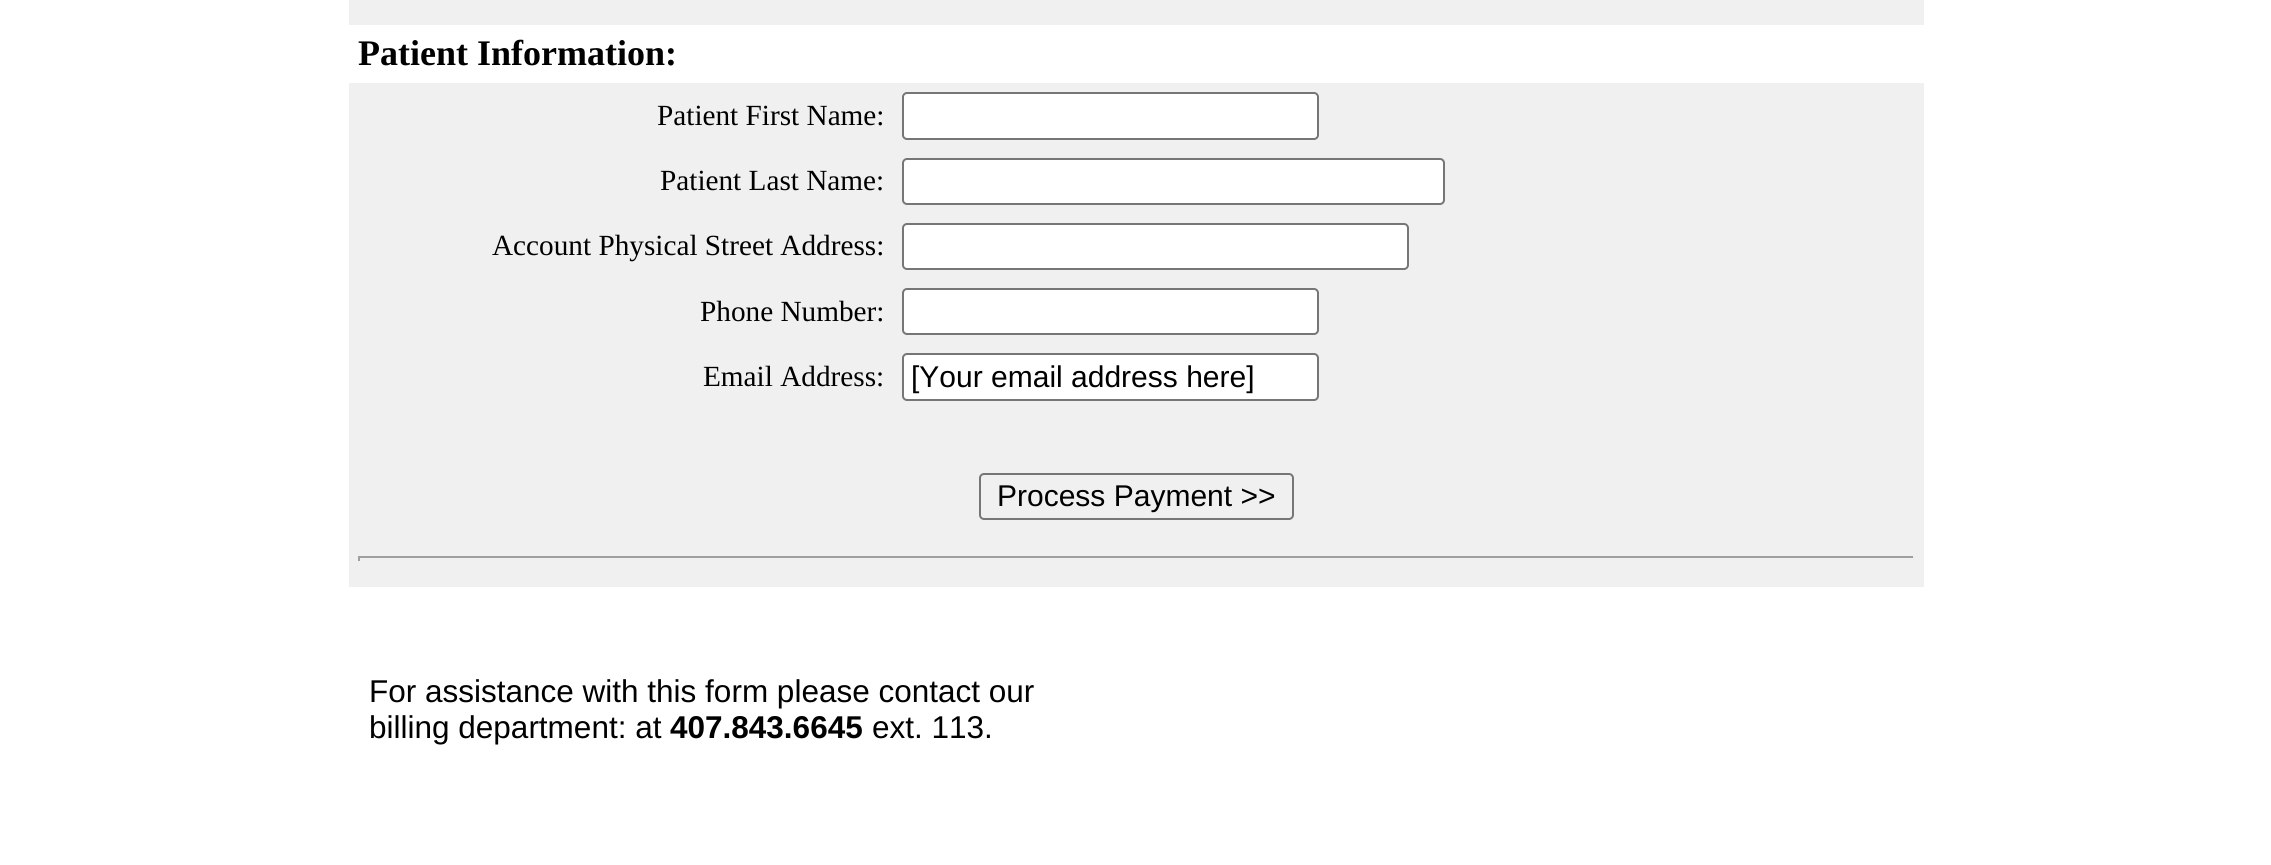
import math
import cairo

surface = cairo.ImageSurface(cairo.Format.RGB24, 2271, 865)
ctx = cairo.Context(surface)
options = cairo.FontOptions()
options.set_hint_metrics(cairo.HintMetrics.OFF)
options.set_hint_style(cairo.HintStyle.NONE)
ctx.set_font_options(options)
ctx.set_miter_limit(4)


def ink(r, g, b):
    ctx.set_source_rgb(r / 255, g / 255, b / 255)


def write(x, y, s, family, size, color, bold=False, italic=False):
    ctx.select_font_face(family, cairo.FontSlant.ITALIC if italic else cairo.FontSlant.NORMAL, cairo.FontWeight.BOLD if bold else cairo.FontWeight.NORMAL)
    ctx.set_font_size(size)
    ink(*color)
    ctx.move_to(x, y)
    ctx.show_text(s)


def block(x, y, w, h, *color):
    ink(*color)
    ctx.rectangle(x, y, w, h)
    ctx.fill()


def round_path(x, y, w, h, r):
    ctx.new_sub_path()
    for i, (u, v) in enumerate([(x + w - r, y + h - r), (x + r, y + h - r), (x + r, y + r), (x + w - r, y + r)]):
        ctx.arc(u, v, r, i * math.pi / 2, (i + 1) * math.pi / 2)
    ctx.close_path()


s1 = dict(family="Liberation Serif", size=36, color=(0, 0, 0), bold=True)
s2 = dict(family="Liberation Serif", size=29.25, color=(0, 0, 0))
s3 = dict(family="Liberation Sans", size=30, color=(0, 0, 0))
s4 = dict(family="Liberation Sans", size=31.5, color=(0, 0, 0))
s5 = dict(family="Liberation Sans", size=31.5, color=(0, 0, 0), bold=True)

ink(255, 255, 255)
ctx.paint()
block(349, 0, 1575, 25, 240, 240, 240)
write(358, 65, "Patient Information:", **s1)
block(349, 83, 1575, 66, 240, 240, 240)
write(657, 125, "Patient First Name:", **s2)
ink(255, 255, 255)
round_path(903, 93, 415, 46, 4)
ctx.fill_preserve()
ink(118, 118, 118)
ctx.stroke()
block(349, 149, 1575, 65, 240, 240, 240)
write(660, 190, "Patient Last Name:", **s2)
ink(255, 255, 255)
round_path(903, 159, 541, 45, 4)
ctx.fill_preserve()
ink(118, 118, 118)
ctx.stroke()
block(349, 214, 1575, 65, 240, 240, 240)
write(492, 255, "Account Physical Street Address:", **s2)
ink(255, 255, 255)
round_path(903, 224, 505, 45, 4)
ctx.fill_preserve()
ink(118, 118, 118)
ctx.stroke()
block(349, 279, 1575, 65, 240, 240, 240)
write(700, 321, "Phone Number:", **s2)
ink(255, 255, 255)
round_path(903, 289, 415, 45, 4)
ctx.fill_preserve()
ink(118, 118, 118)
ctx.stroke()
block(349, 344, 1575, 243, 240, 240, 240)
write(703, 386, "Email Address:", **s2)
ink(255, 255, 255)
round_path(903, 354, 415, 46, 4)
ctx.fill_preserve()
ink(118, 118, 118)
ctx.stroke()
write(911, 387, "[Your email address here]", **s3)
round_path(980, 474, 313, 45, 4)
ink(118, 118, 118)
ctx.stroke()
write(997, 506, "Process Payment >>", **s3)
block(358, 556, 1557, 2, 159, 159, 159)
block(1913, 556, 2, 5, 238, 238, 238)
block(358, 556, 2, 5, 159, 159, 159)
write(369, 702, "For assistance with this form please contact our", **s4)
write(369, 738, "billing department: at", **s4)
write(670, 738, "407.843.6645", **s5)
write(872, 738, "ext. 113.", **s4)
surface.write_to_png("screenshot.png")
